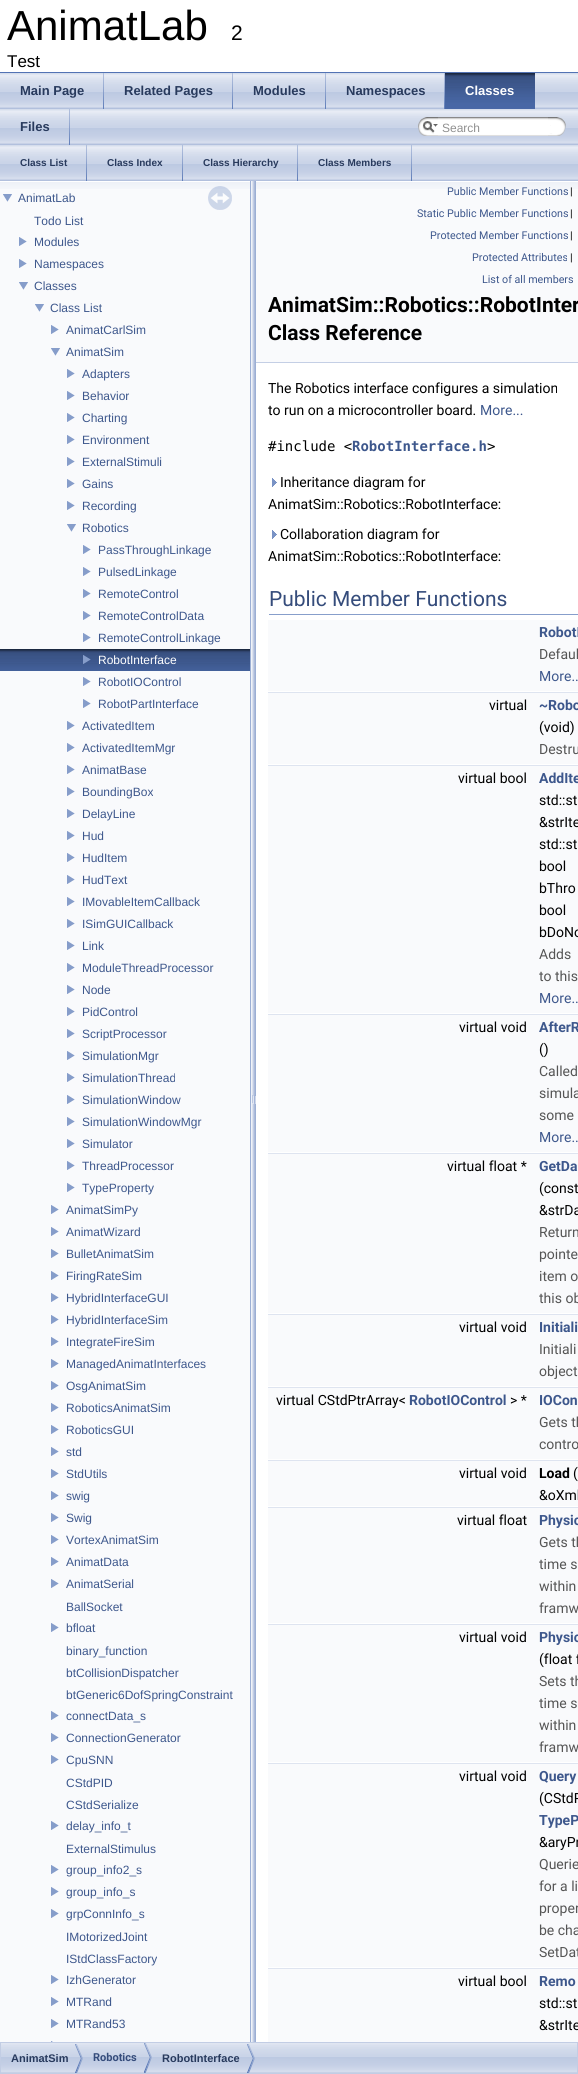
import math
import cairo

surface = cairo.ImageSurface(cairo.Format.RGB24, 578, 2074)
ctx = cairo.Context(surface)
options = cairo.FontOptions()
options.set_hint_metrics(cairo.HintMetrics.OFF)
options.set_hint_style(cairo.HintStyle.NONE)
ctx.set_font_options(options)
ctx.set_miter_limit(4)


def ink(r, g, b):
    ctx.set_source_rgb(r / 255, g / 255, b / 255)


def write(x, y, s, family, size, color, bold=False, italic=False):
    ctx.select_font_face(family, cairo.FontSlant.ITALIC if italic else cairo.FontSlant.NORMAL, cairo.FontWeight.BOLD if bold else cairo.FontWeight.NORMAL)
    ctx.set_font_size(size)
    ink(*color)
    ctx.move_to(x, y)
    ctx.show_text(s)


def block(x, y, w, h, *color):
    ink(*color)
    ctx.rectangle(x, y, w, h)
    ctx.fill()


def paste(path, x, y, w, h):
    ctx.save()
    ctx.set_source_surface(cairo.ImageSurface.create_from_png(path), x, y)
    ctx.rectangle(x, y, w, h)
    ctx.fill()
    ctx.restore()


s1 = dict(family="Liberation Sans", size=42, color=(0, 0, 0))
s2 = dict(family="Liberation Sans", size=21, color=(0, 0, 0))
s3 = dict(family="Liberation Sans", size=17, color=(0, 0, 0))
s4 = dict(family="Liberation Sans", size=13, color=(40, 58, 93), bold=True)
s5 = dict(family="Liberation Sans", size=13, color=(255, 255, 255), bold=True)
s6 = dict(family="Liberation Sans", size=12, color=(144, 144, 144))
s7 = dict(family="Liberation Sans", size=10, color=(40, 58, 93), bold=True)
s8 = dict(family="Liberation Sans", size=12, color=(61, 87, 140))
s9 = dict(family="Liberation Sans", size=12, color=(255, 255, 255))
s10 = dict(family="Roboto", size=10.7, color=(61, 87, 140))
s11 = dict(family="Roboto", size=10.7, color=(0, 0, 0))
s12 = dict(family="Roboto", size=21, color=(0, 0, 0), bold=True)
s13 = dict(family="Roboto", size=14, color=(0, 0, 0))
s14 = dict(family="Roboto", size=14, color=(61, 87, 140))
s15 = dict(family="DejaVu Sans Mono", size=14, color=(0, 0, 0))
s16 = dict(family="DejaVu Sans Mono", size=14, color=(61, 87, 140), bold=True)
s17 = dict(family="Roboto", size=21, color=(53, 76, 123))
s18 = dict(family="Roboto", size=14, color=(61, 87, 140), bold=True)
s19 = dict(family="Roboto", size=14, color=(85, 85, 85))
s20 = dict(family="Roboto", size=14, color=(0, 0, 0), bold=True)
s21 = dict(family="Liberation Sans", size=11, color=(40, 58, 93), bold=True)
s22 = dict(family="Roboto", size=11, color=(53, 76, 123), bold=True)

ink(255, 255, 255)
ctx.paint()
block(0, 72, 578, 1, 83, 115, 180)
write(7, 40, "AnimatLab", **s1)
write(231, 40, "2", **s2)
write(7, 67, "Test", **s3)
paste("pic1.png", 0, 73, 578, 72)
paste("pic2.png", 103, 73, 1, 36)
write(20, 95, "Main Page", **s4)
paste("pic2.png", 232, 73, 1, 36)
write(124, 95, "Related Pages", **s4)
paste("pic2.png", 325, 73, 1, 36)
write(253, 95, "Modules", **s4)
paste("pic2.png", 444, 73, 1, 36)
write(346, 95, "Namespaces", **s4)
paste("pic3.png", 445, 73, 90, 36)
write(465, 95, "Classes", **s5)
paste("pic2.png", 69, 109, 1, 36)
write(20, 131, "Files", **s4)
paste("pic4.png", 418, 117, 20, 19)
paste("pic5.png", 423, 121, 15, 12)
paste("pic6.png", 438, 117, 110, 19)
write(442, 132, "Search", **s6)
paste("pic7.png", 548, 117, 18, 19)
paste("pic8.png", 0, 145, 578, 36)
paste("pic2.png", 86, 145, 1, 36)
write(20, 166, "Class List", **s7)
paste("pic2.png", 182, 145, 1, 36)
write(107, 166, "Class Index", **s7)
paste("pic2.png", 297, 145, 1, 36)
write(203, 166, "Class Hierarchy", **s7)
paste("pic2.png", 411, 145, 1, 36)
write(318, 166, "Class Members", **s7)
block(0, 189, 250, 1853, 249, 250, 252)
paste("pic9.png", 0, 181, 250, 8)
paste("pic10.png", 208, 186, 24, 24)
paste("pic11.png", 3, 194, 9, 8)
write(18, 202, "AnimatLab", **s8)
write(34, 225, "Todo List", **s8)
paste("pic12.png", 19, 237, 8, 9)
write(34, 246, "Modules", **s8)
paste("pic12.png", 19, 259, 8, 9)
write(34, 268, "Namespaces", **s8)
paste("pic11.png", 19, 282, 9, 8)
write(34, 290, "Classes", **s8)
paste("pic11.png", 35, 304, 9, 8)
write(50, 312, "Class List", **s8)
paste("pic12.png", 51, 325, 8, 9)
write(66, 334, "AnimatCarlSim", **s8)
paste("pic11.png", 51, 348, 9, 8)
write(66, 356, "AnimatSim", **s8)
paste("pic12.png", 67, 369, 8, 9)
write(82, 378, "Adapters", **s8)
paste("pic12.png", 67, 391, 8, 9)
write(82, 400, "Behavior", **s8)
paste("pic12.png", 67, 413, 8, 9)
write(82, 422, "Charting", **s8)
paste("pic12.png", 67, 435, 8, 9)
write(82, 444, "Environment", **s8)
paste("pic12.png", 67, 457, 8, 9)
write(82, 466, "ExternalStimuli", **s8)
paste("pic12.png", 67, 479, 8, 9)
write(82, 488, "Gains", **s8)
paste("pic12.png", 67, 501, 8, 9)
write(82, 510, "Recording", **s8)
paste("pic11.png", 67, 524, 9, 8)
write(82, 532, "Robotics", **s8)
paste("pic12.png", 83, 545, 8, 9)
write(98, 554, "PassThroughLinkage", **s8)
paste("pic12.png", 83, 567, 8, 9)
write(98, 576, "PulsedLinkage", **s8)
paste("pic12.png", 83, 589, 8, 9)
write(98, 598, "RemoteControl", **s8)
paste("pic12.png", 83, 611, 8, 9)
write(98, 620, "RemoteControlData", **s8)
paste("pic12.png", 83, 633, 8, 9)
write(98, 642, "RemoteControlLinkage", **s8)
paste("pic13.png", 0, 649, 250, 22)
paste("pic14.png", 83, 655, 8, 9)
write(98, 664, "RobotInterface", **s9)
paste("pic12.png", 83, 677, 8, 9)
write(98, 686, "RobotIOControl", **s8)
paste("pic12.png", 83, 699, 8, 9)
write(98, 708, "RobotPartInterface", **s8)
paste("pic12.png", 67, 721, 8, 9)
write(82, 730, "ActivatedItem", **s8)
paste("pic12.png", 67, 743, 8, 9)
write(82, 752, "ActivatedItemMgr", **s8)
paste("pic12.png", 67, 765, 8, 9)
write(82, 774, "AnimatBase", **s8)
paste("pic12.png", 67, 787, 8, 9)
write(82, 796, "BoundingBox", **s8)
paste("pic12.png", 67, 809, 8, 9)
write(82, 818, "DelayLine", **s8)
paste("pic12.png", 67, 831, 8, 9)
write(82, 840, "Hud", **s8)
paste("pic12.png", 67, 853, 8, 9)
write(82, 862, "HudItem", **s8)
paste("pic12.png", 67, 875, 8, 9)
write(82, 884, "HudText", **s8)
paste("pic12.png", 67, 897, 8, 9)
write(82, 906, "IMovableItemCallback", **s8)
paste("pic12.png", 67, 919, 8, 9)
write(82, 928, "ISimGUICallback", **s8)
paste("pic12.png", 67, 941, 8, 9)
write(82, 950, "Link", **s8)
paste("pic12.png", 67, 963, 8, 9)
write(82, 972, "ModuleThreadProcessor", **s8)
paste("pic12.png", 67, 985, 8, 9)
write(82, 994, "Node", **s8)
paste("pic12.png", 67, 1007, 8, 9)
write(82, 1016, "PidControl", **s8)
paste("pic12.png", 67, 1029, 8, 9)
write(82, 1038, "ScriptProcessor", **s8)
paste("pic12.png", 67, 1051, 8, 9)
write(82, 1060, "SimulationMgr", **s8)
paste("pic12.png", 67, 1073, 8, 9)
write(82, 1082, "SimulationThread", **s8)
paste("pic12.png", 67, 1095, 8, 9)
write(82, 1104, "SimulationWindow", **s8)
paste("pic12.png", 67, 1117, 8, 9)
write(82, 1126, "SimulationWindowMgr", **s8)
paste("pic12.png", 67, 1139, 8, 9)
write(82, 1148, "Simulator", **s8)
paste("pic12.png", 67, 1161, 8, 9)
write(82, 1170, "ThreadProcessor", **s8)
paste("pic12.png", 67, 1183, 8, 9)
write(82, 1192, "TypeProperty", **s8)
paste("pic12.png", 51, 1205, 8, 9)
write(66, 1214, "AnimatSimPy", **s8)
paste("pic12.png", 51, 1227, 8, 9)
write(66, 1236, "AnimatWizard", **s8)
paste("pic12.png", 51, 1249, 8, 9)
write(66, 1258, "BulletAnimatSim", **s8)
paste("pic12.png", 51, 1271, 8, 9)
write(66, 1280, "FiringRateSim", **s8)
paste("pic12.png", 51, 1293, 8, 9)
write(66, 1302, "HybridInterfaceGUI", **s8)
paste("pic12.png", 51, 1315, 8, 9)
write(66, 1324, "HybridInterfaceSim", **s8)
paste("pic12.png", 51, 1337, 8, 9)
write(66, 1346, "IntegrateFireSim", **s8)
paste("pic12.png", 51, 1359, 8, 9)
write(66, 1368, "ManagedAnimatInterfaces", **s8)
paste("pic12.png", 51, 1381, 8, 9)
write(66, 1390, "OsgAnimatSim", **s8)
paste("pic12.png", 51, 1403, 8, 9)
write(66, 1412, "RoboticsAnimatSim", **s8)
paste("pic12.png", 51, 1425, 8, 9)
write(66, 1434, "RoboticsGUI", **s8)
paste("pic12.png", 51, 1447, 8, 9)
write(66, 1456, "std", **s8)
paste("pic12.png", 51, 1469, 8, 9)
write(66, 1478, "StdUtils", **s8)
paste("pic12.png", 51, 1491, 8, 9)
write(66, 1500, "swig", **s8)
paste("pic12.png", 51, 1513, 8, 9)
write(66, 1522, "Swig", **s8)
paste("pic12.png", 51, 1535, 8, 9)
write(66, 1544, "VortexAnimatSim", **s8)
paste("pic12.png", 51, 1557, 8, 9)
write(66, 1566, "AnimatData", **s8)
paste("pic12.png", 51, 1579, 8, 9)
write(66, 1588, "AnimatSerial", **s8)
write(66, 1611, "BallSocket", **s8)
paste("pic12.png", 51, 1623, 8, 9)
write(66, 1632, "bfloat", **s8)
write(66, 1655, "binary_function", **s8)
write(66, 1677, "btCollisionDispatcher", **s8)
write(66, 1699, "btGeneric6DofSpringConstraint", **s8)
paste("pic12.png", 51, 1711, 8, 9)
write(66, 1720, "connectData_s", **s8)
paste("pic12.png", 51, 1733, 8, 9)
write(66, 1742, "ConnectionGenerator", **s8)
paste("pic12.png", 51, 1755, 8, 9)
write(66, 1764, "CpuSNN", **s8)
write(66, 1787, "CStdPID", **s8)
write(66, 1809, "CStdSerialize", **s8)
paste("pic12.png", 51, 1821, 8, 9)
write(66, 1830, "delay_info_t", **s8)
write(66, 1853, "ExternalStimulus", **s8)
paste("pic12.png", 51, 1865, 8, 9)
write(66, 1874, "group_info2_s", **s8)
paste("pic12.png", 51, 1887, 8, 9)
write(66, 1896, "group_info_s", **s8)
paste("pic12.png", 51, 1909, 8, 9)
write(66, 1918, "grpConnInfo_s", **s8)
write(66, 1941, "IMotorizedJoint", **s8)
write(66, 1963, "IStdClassFactory", **s8)
paste("pic12.png", 51, 1975, 8, 9)
write(66, 1984, "IzhGenerator", **s8)
paste("pic12.png", 51, 1997, 8, 9)
write(66, 2006, "MTRand", **s8)
paste("pic12.png", 51, 2019, 8, 9)
write(66, 2028, "MTRand53", **s8)
paste("pic15.png", 51, 2041, 2, 1)
paste("pic16.png", 250, 181, 6, 1861)
block(256, 189, 322, 173, 249, 250, 252)
paste("pic17.png", 256, 181, 322, 8)
block(256, 362, 322, 1, 196, 207, 229)
write(447, 195, "Public Member Functions", **s10)
write(570, 195, "|", **s11)
write(417, 217, "Static Public Member Functions", **s10)
write(570, 217, "|", **s11)
write(430, 239, "Protected Member Functions", **s10)
write(570, 239, "|", **s11)
write(472, 261, "Protected Attributes", **s10)
write(570, 261, "|", **s11)
write(482, 283, "List of all members", **s10)
write(268, 312, "AnimatSim::Robotics::RobotInter", **s12)
write(268, 340, "Class Reference", **s12)
write(268, 393, "The Robotics interface configures a simulation", **s13)
write(268, 415, "to run on a microcontroller board.", **s13)
write(480, 415, "More...", **s14)
write(268, 451, "#include <", **s15)
write(352, 451, "RobotInterface.h", **s16)
write(487, 451, ">", **s15)
paste("pic18.png", 272, 478, 5, 9)
write(280, 487, "Inheritance diagram for", **s13)
write(268, 509, "AnimatSim::Robotics::RobotInterface:", **s13)
paste("pic18.png", 272, 530, 5, 9)
write(280, 539, "Collaboration diagram for", **s13)
write(268, 561, "AnimatSim::Robotics::RobotInterface:", **s13)
block(269, 614, 309, 1, 135, 158, 203)
write(269, 606, "Public Member Functions", **s17)
block(268, 620, 310, 23, 249, 250, 252)
write(539, 637, "RobotI", **s18)
block(268, 643, 310, 48, 249, 250, 252)
write(539, 659, "Defaul", **s19)
write(539, 681, "More..", **s14)
block(268, 692, 310, 1, 222, 228, 240)
block(268, 693, 310, 45, 249, 250, 252)
write(489, 710, "virtual", **s13)
write(539, 710, "~Robo", **s18)
write(539, 732, "(void)", **s13)
block(268, 738, 310, 26, 249, 250, 252)
write(539, 754, "Destru", **s19)
block(268, 765, 310, 1, 222, 228, 240)
block(268, 766, 310, 177, 249, 250, 252)
write(458, 783, "virtual bool", **s13)
write(539, 783, "AddIte", **s18)
write(539, 805, "std::st", **s13)
write(539, 827, "&strIte", **s13)
write(539, 849, "std::st", **s13)
write(539, 871, "bool", **s13)
write(539, 893, "bThro", **s13)
write(539, 915, "bool", **s13)
write(539, 937, "bDoNo", **s13)
block(268, 943, 310, 70, 249, 250, 252)
write(539, 959, "Adds", **s19)
write(539, 981, "to this", **s19)
write(539, 1003, "More..", **s14)
block(268, 1014, 310, 1, 222, 228, 240)
block(268, 1015, 310, 45, 249, 250, 252)
write(459, 1032, "virtual void", **s13)
write(539, 1032, "AfterR", **s18)
write(539, 1054, "()", **s13)
block(268, 1060, 310, 92, 249, 250, 252)
write(539, 1076, "Called", **s19)
write(539, 1098, "simula", **s19)
write(539, 1120, "some", **s19)
write(539, 1142, "More..", **s14)
block(268, 1153, 310, 1, 222, 228, 240)
block(268, 1154, 310, 67, 249, 250, 252)
write(447, 1171, "virtual float *", **s13)
write(539, 1171, "GetDa", **s18)
write(539, 1193, "(const", **s13)
write(539, 1215, "&strDa", **s13)
block(268, 1221, 310, 92, 249, 250, 252)
write(539, 1237, "Return", **s19)
write(539, 1259, "pointe", **s19)
write(539, 1281, "item o", **s19)
write(539, 1303, "this ob", **s19)
block(268, 1314, 310, 1, 222, 228, 240)
block(268, 1315, 310, 23, 249, 250, 252)
write(459, 1332, "virtual void", **s13)
write(539, 1332, "Initiali", **s18)
block(268, 1338, 310, 48, 249, 250, 252)
write(539, 1354, "Initiali", **s19)
write(539, 1376, "object", **s19)
block(268, 1387, 310, 1, 222, 228, 240)
block(268, 1388, 310, 23, 249, 250, 252)
write(276, 1405, "virtual CStdPtrArray<", **s13)
write(409, 1405, "RobotIOControl", **s18)
write(510, 1405, "> *", **s13)
write(539, 1405, "IOCon", **s18)
block(268, 1411, 310, 48, 249, 250, 252)
write(539, 1427, "Gets th", **s19)
write(539, 1449, "contro", **s19)
block(268, 1460, 310, 1, 222, 228, 240)
block(268, 1461, 310, 45, 249, 250, 252)
write(459, 1478, "virtual void", **s13)
write(539, 1478, "Load", **s20)
write(573, 1478, "(", **s13)
write(539, 1500, "&oXml", **s13)
block(268, 1507, 310, 1, 222, 228, 240)
block(268, 1508, 310, 23, 249, 250, 252)
write(457, 1525, "virtual float", **s13)
write(539, 1525, "Physic", **s18)
block(268, 1531, 310, 92, 249, 250, 252)
write(539, 1547, "Gets th", **s19)
write(539, 1569, "time s", **s19)
write(539, 1591, "within", **s19)
write(539, 1613, "framw", **s19)
block(268, 1624, 310, 1, 222, 228, 240)
block(268, 1625, 310, 45, 249, 250, 252)
write(459, 1642, "virtual void", **s13)
write(539, 1642, "Physic", **s18)
write(539, 1664, "(float f", **s13)
block(268, 1670, 310, 92, 249, 250, 252)
write(539, 1686, "Sets th", **s19)
write(539, 1708, "time s", **s19)
write(539, 1730, "within", **s19)
write(539, 1752, "framw", **s19)
block(268, 1763, 310, 1, 222, 228, 240)
block(268, 1764, 310, 89, 249, 250, 252)
write(459, 1781, "virtual void", **s13)
write(539, 1781, "Query", **s18)
write(539, 1803, "(CStdP", **s13)
write(539, 1825, "TypeP", **s18)
write(539, 1847, "&aryPr", **s13)
block(268, 1853, 310, 114, 249, 250, 252)
write(539, 1869, "Querie", **s19)
write(539, 1891, "for a li", **s19)
write(539, 1913, "proper", **s19)
write(539, 1935, "be cha", **s19)
write(539, 1957, "SetDat", **s19)
block(268, 1968, 310, 1, 222, 228, 240)
block(268, 1969, 310, 73, 249, 250, 252)
write(458, 1986, "virtual bool", **s13)
write(539, 1986, "Remo", **s18)
write(539, 2008, "std::st", **s13)
write(539, 2030, "&strIte", **s13)
paste("pic19.png", 1, 2043, 576, 30)
ctx.rectangle(0.5, 2042.5, 577, 31)
ink(194, 205, 228)
ctx.set_line_width(1)
ctx.stroke()
paste("pic20.png", 75, 2044, 8, 29)
write(11, 2062, "AnimatSim", **s21)
paste("pic21.png", 144, 2043, 8, 30)
write(93, 2061, "Robotics", **s22)
paste("pic20.png", 247, 2044, 8, 29)
write(162, 2062, "RobotInterface", **s21)
surface.write_to_png("screenshot.png")
